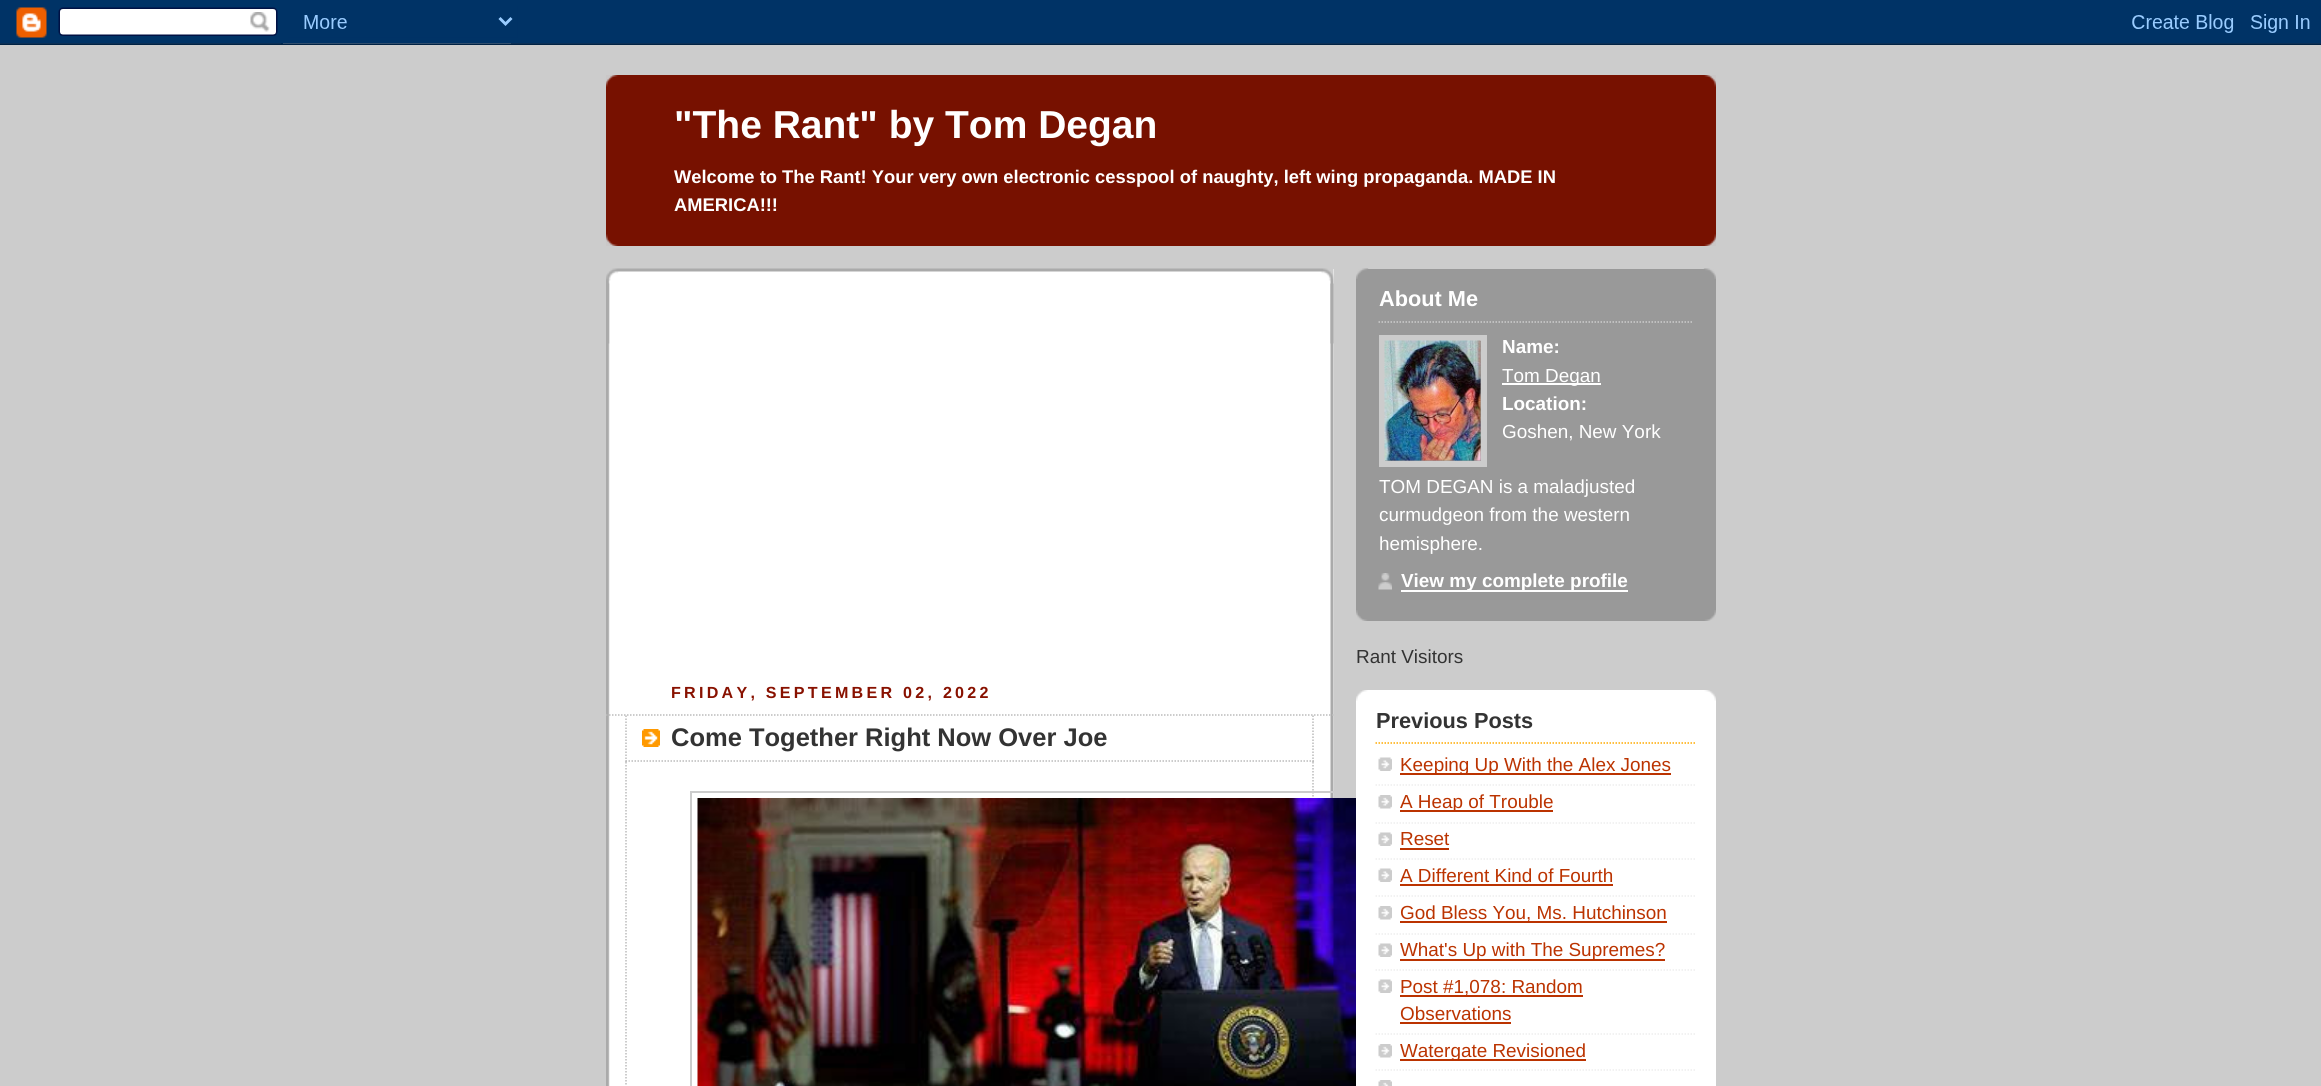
import math
import cairo

surface = cairo.ImageSurface(cairo.Format.RGB24, 2321, 1086)
ctx = cairo.Context(surface)
options = cairo.FontOptions()
options.set_hint_metrics(cairo.HintMetrics.OFF)
options.set_hint_style(cairo.HintStyle.NONE)
ctx.set_font_options(options)
ctx.set_miter_limit(4)


def ink(r, g, b):
    ctx.set_source_rgb(r / 255, g / 255, b / 255)


def write(x, y, s, family, size, color, bold=False, italic=False):
    ctx.select_font_face(family, cairo.FontSlant.ITALIC if italic else cairo.FontSlant.NORMAL, cairo.FontWeight.BOLD if bold else cairo.FontWeight.NORMAL)
    ctx.set_font_size(size)
    ink(*color)
    ctx.move_to(x, y)
    ctx.show_text(s)


def write_spaced(x, y, s, letter, word):
    ctx.move_to(x, y)
    for ch in s:
        ctx.show_text(ch)
        ctx.rel_move_to(letter + word * (ch == ' '), 0)


def block(x, y, w, h, *color):
    ink(*color)
    ctx.rectangle(x, y, w, h)
    ctx.fill()


def paste(path, x, y, w, h):
    ctx.save()
    ctx.set_source_surface(cairo.ImageSurface.create_from_png(path), x, y)
    ctx.rectangle(x, y, w, h)
    ctx.fill()
    ctx.restore()


s1 = dict(family="Liberation Sans", size=39, color=(255, 255, 255), bold=True)
s2 = dict(family="Liberation Sans", size=18.35, color=(255, 255, 255), bold=True)
s3 = dict(family="Liberation Sans", size=25.5, color=(51, 51, 51), bold=True)
s4 = dict(family="Liberation Sans", size=21.75, color=(255, 255, 255), bold=True)
s5 = dict(family="Liberation Sans", size=18.9, color=(255, 255, 255), bold=True)
s6 = dict(family="Liberation Sans", size=18.9, color=(255, 255, 255))
s7 = dict(family="Liberation Sans", size=18.9, color=(51, 51, 51))
s8 = dict(family="Liberation Sans", size=21.75, color=(51, 51, 51), bold=True)
s9 = dict(family="Liberation Sans", size=18.9, color=(187, 51, 0))

ink(204, 204, 204)
ctx.paint()
paste("pic1.png", 0, 0, 2321, 45)
block(606, 75, 1110, 171, 119, 17, 0)
paste("pic2.png", 606, 75, 1110, 12)
paste("pic3.png", 606, 234, 1110, 12)
write(674, 138, "\"The Rant\" by Tom Degan", **s1)
write(674, 183, "Welcome to The Rant! Your very own electronic cesspool of naughty, left wing propaganda. MADE IN", **s2)
write(674, 211, "AMERICA!!!", **s2)
block(608, 269, 726, 817, 255, 255, 255)
paste("pic4.png", 606, 268, 728, 76)
paste("pic5.png", 606, 283, 728, 803)
ctx.set_font_size(16.1)
ink(136, 17, 0)
write_spaced(671, 698, "FRIDAY, SEPTEMBER 02, 2022", 3.25, 0)
ctx.new_path()
ctx.move_to(606, 715)
ctx.line_to(1333.5, 715)
ink(187, 187, 187)
ctx.set_line_width(1.5)
ctx.set_dash([1.5, 1.5])
ctx.stroke()
paste("pic6.png", 642, 729, 18, 18)
ctx.new_path()
ctx.move_to(1313, 715.5)
ctx.line_to(1313, 762)
ctx.stroke()
ctx.new_path()
ctx.move_to(625.5, 761)
ctx.line_to(1314, 761)
ctx.stroke()
ctx.new_path()
ctx.move_to(626, 715.5)
ctx.line_to(626, 762)
ctx.stroke()
write(671, 746, "Come Together Right Now Over Joe", **s3)
ctx.new_path()
ctx.move_to(1313, 762)
ctx.line_to(1313, 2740.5)
ink(187, 187, 187)
ctx.stroke()
ctx.new_path()
ctx.move_to(626, 762)
ctx.line_to(626, 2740.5)
ctx.stroke()
ctx.rectangle(691, 792, 738, 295)
ink(204, 204, 204)
ctx.set_line_width(2)
ctx.set_dash([])
ctx.stroke()
paste("pic7.png", 697, 798, 659, 288)
block(1356, 269, 360, 352, 153, 153, 153)
paste("pic8.png", 1356, 610, 360, 11)
paste("pic9.png", 1356, 268, 360, 11)
write(1379, 306, "About Me", **s4)
ctx.new_path()
ctx.move_to(1378.5, 322)
ctx.line_to(1693.5, 322)
ink(204, 204, 204)
ctx.set_line_width(1.5)
ctx.set_dash([1.5, 1.5])
ctx.stroke()
ctx.rectangle(1382, 338, 102, 126)
ctx.set_line_width(6)
ctx.set_dash([])
ctx.stroke()
paste("pic10.png", 1384, 340, 97, 121)
write(1502, 353, "Name:", **s5)
block(1502, 383, 99, 2, 255, 255, 255)
write(1502, 382, "Tom Degan", **s6)
write(1502, 410, "Location:", **s5)
write(1502, 438, "Goshen, New York", **s6)
write(1379, 493, "TOM DEGAN is a maladjusted", **s6)
write(1379, 521, "curmudgeon from the western", **s6)
write(1379, 550, "hemisphere.", **s6)
paste("pic11.png", 1378, 573, 14, 17)
block(1401, 590, 227, 2, 255, 255, 255)
write(1401, 587, "View my complete profile", **s5)
write(1356, 663, "Rant Visitors", **s7)
block(1356, 690, 360, 396, 255, 255, 255)
paste("pic12.png", 1356, 690, 360, 11)
ctx.new_path()
ctx.move_to(1375.5, 743)
ctx.line_to(1696.5, 743)
ink(255, 170, 0)
ctx.set_line_width(1.5)
ctx.set_dash([1.5, 1.5])
ctx.stroke()
write(1376, 728, "Previous Posts", **s8)
paste("pic13.png", 1378, 757, 14, 14)
ctx.new_path()
ctx.move_to(1375.5, 785)
ctx.line_to(1696.5, 785)
ink(238, 238, 238)
ctx.stroke()
block(1400, 773, 271, 2, 187, 51, 0)
write(1400, 771, "Keeping Up With the Alex Jones", **s9)
paste("pic14.png", 1378, 795, 14, 14)
ctx.new_path()
ctx.move_to(1375.5, 823)
ctx.line_to(1696.5, 823)
ink(238, 238, 238)
ctx.stroke()
block(1400, 810, 153, 2, 187, 51, 0)
write(1400, 808, "A Heap of Trouble", **s9)
paste("pic13.png", 1378, 832, 14, 14)
ctx.new_path()
ctx.move_to(1375.5, 859)
ctx.line_to(1696.5, 859)
ink(238, 238, 238)
ctx.stroke()
write(1400, 845, "Reset", **s9)
block(1400, 848, 49, 2, 187, 51, 0)
paste("pic13.png", 1378, 868, 14, 14)
ctx.new_path()
ctx.move_to(1375.5, 896)
ctx.line_to(1696.5, 896)
ink(238, 238, 238)
ctx.stroke()
write(1400, 882, "A Different Kind of Fourth", **s9)
block(1400, 884, 213, 2, 187, 51, 0)
paste("pic14.png", 1378, 906, 14, 14)
ctx.new_path()
ctx.move_to(1375.5, 934)
ctx.line_to(1696.5, 934)
ink(238, 238, 238)
ctx.stroke()
block(1400, 921, 267, 2, 187, 51, 0)
write(1400, 919, "God Bless You, Ms. Hutchinson", **s9)
paste("pic13.png", 1378, 943, 14, 14)
ctx.new_path()
ctx.move_to(1375.5, 970)
ctx.line_to(1696.5, 970)
ink(238, 238, 238)
ctx.stroke()
block(1400, 959, 265, 2, 187, 51, 0)
write(1400, 956, "What's Up with The Supremes?", **s9)
paste("pic13.png", 1378, 979, 14, 14)
ctx.new_path()
ctx.move_to(1375.5, 1034)
ctx.line_to(1696.5, 1034)
ink(238, 238, 238)
ctx.stroke()
block(1400, 995, 183, 2, 187, 51, 0)
write(1400, 993, "Post #1,078: Random", **s9)
write(1400, 1020, "Observations", **s9)
block(1400, 1022, 111, 2, 187, 51, 0)
paste("pic14.png", 1378, 1044, 14, 14)
ctx.new_path()
ctx.move_to(1375.5, 1070)
ctx.line_to(1696.5, 1070)
ink(238, 238, 238)
ctx.stroke()
block(1400, 1059, 186, 2, 187, 51, 0)
write(1400, 1057, "Watergate Revisioned", **s9)
paste("pic15.png", 1378, 1080, 14, 6)
surface.write_to_png("screenshot.png")
